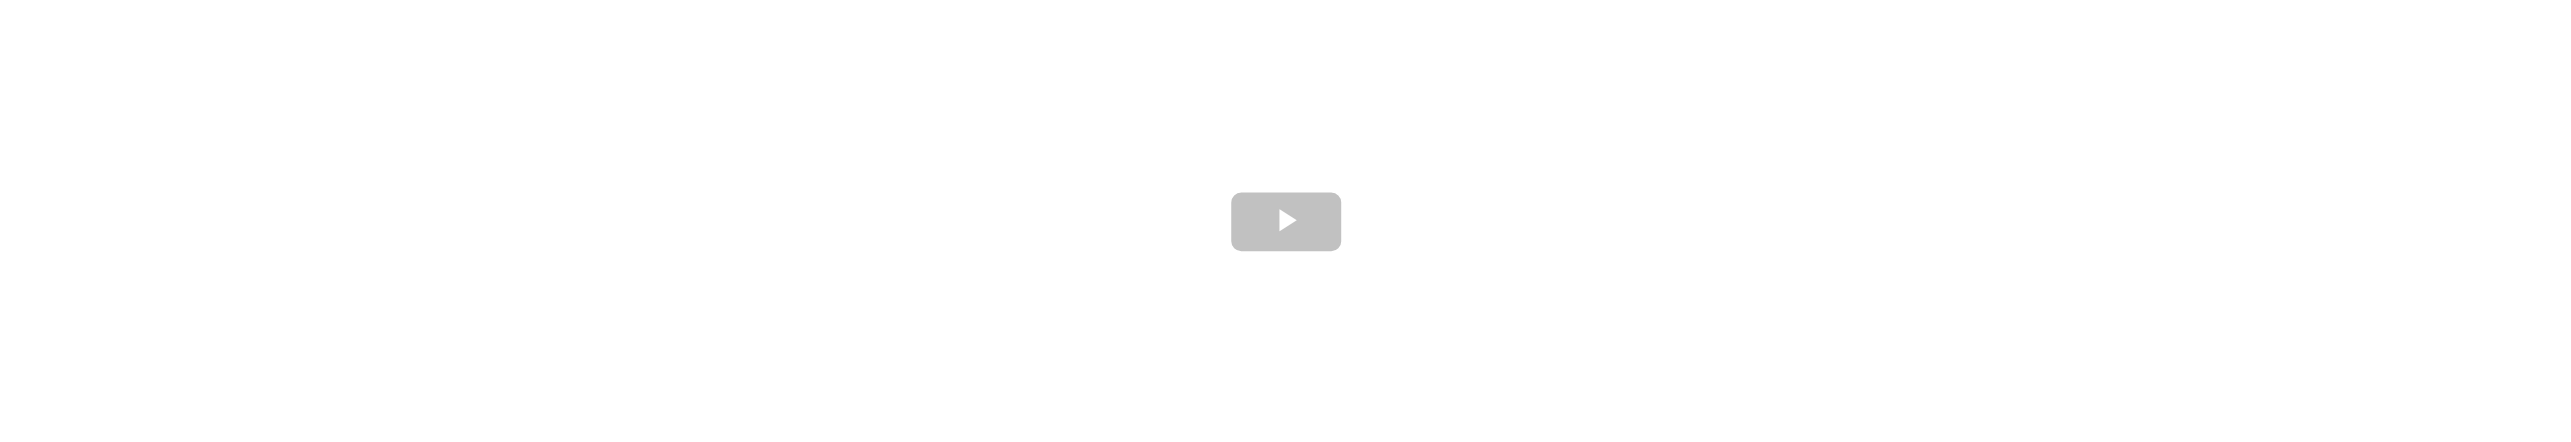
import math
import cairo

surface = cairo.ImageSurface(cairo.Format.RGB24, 2571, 442)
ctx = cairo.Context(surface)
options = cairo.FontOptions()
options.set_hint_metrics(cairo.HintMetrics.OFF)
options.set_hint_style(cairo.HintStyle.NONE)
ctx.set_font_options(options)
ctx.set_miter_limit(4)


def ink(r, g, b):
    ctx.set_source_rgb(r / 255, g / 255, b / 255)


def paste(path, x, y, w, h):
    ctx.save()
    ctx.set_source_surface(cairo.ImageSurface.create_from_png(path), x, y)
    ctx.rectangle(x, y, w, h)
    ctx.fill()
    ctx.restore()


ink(255, 255, 255)
ctx.paint()
paste("pic1.png", 1231, 192, 111, 60)
surface.write_to_png("screenshot.png")
